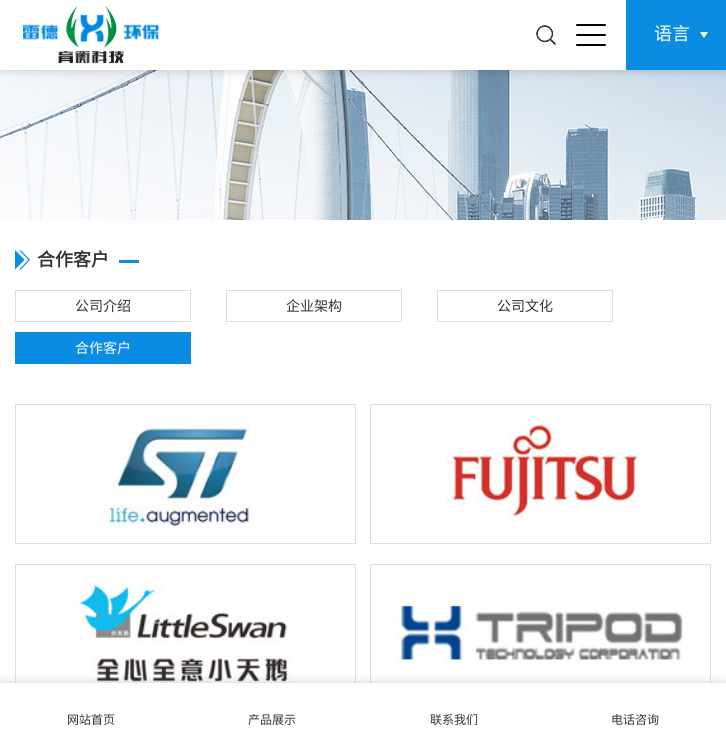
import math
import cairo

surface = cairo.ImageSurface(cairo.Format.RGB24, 726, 733)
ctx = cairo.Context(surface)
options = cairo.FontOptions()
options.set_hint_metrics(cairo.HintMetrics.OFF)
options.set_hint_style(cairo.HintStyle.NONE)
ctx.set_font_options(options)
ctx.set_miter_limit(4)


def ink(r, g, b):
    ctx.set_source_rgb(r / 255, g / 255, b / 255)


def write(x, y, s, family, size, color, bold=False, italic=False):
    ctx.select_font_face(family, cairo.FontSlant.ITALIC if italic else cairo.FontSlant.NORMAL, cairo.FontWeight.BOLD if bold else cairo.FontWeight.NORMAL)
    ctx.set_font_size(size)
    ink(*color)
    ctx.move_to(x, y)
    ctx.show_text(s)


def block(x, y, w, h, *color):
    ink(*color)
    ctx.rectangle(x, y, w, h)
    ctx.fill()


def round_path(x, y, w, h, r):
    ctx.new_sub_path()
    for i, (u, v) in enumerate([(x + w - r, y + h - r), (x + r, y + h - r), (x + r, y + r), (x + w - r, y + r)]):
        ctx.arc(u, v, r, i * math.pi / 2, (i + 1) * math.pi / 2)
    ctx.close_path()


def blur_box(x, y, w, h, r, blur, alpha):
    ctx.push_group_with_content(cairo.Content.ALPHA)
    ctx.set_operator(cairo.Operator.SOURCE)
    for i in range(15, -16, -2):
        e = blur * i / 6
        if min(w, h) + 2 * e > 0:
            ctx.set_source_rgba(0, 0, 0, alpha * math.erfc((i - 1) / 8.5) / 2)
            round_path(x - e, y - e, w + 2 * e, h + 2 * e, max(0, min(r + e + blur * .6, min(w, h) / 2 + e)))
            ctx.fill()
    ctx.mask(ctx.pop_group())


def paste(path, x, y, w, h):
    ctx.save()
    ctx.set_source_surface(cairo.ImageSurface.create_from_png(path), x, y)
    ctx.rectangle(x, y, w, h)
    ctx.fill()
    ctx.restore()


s1 = dict(family="Noto Sans CJK SC", size=18, color=(255, 255, 255))
s2 = dict(family="Noto Sans CJK SC", size=18, color=(51, 51, 51), bold=True)
s3 = dict(family="Noto Sans CJK SC", size=14, color=(51, 51, 51))
s4 = dict(family="Noto Sans CJK SC", size=14, color=(255, 255, 255))
s5 = dict(family="Noto Sans CJK SC", size=12, color=(51, 51, 51))

ink(255, 255, 255)
ctx.paint()
paste("pic4.png", 0, 70, 726, 150)
ink(0, 0, 0)
blur_box(0, 0, 726, 70, 0, 5, 0.2)
block(0, 0, 626, 70, 255, 255, 255)
paste("pic1.png", 22, 6, 137, 58)
paste("pic2.png", 536, 25, 20, 20)
ink(0, 0, 0)
round_path(576, 24, 30, 2, 1)
ctx.fill()
round_path(576, 34, 30, 2, 1)
ctx.fill()
round_path(576, 44, 30, 2, 1)
ctx.fill()
block(626, 0, 100, 70, 10, 140, 226)
write(654, 40, "语言", **s1)
paste("pic3.png", 700, 32, 8, 6)
paste("pic5.png", 15, 250, 15, 20)
write(37, 266, "合作客户", **s2)
block(119, 260, 20, 3, 10, 140, 226)
ctx.rectangle(15.5, 290.5, 175, 31)
ink(221, 221, 221)
ctx.set_line_width(1)
ctx.stroke()
write(75, 311, "公司介绍", **s3)
ctx.rectangle(226.5, 290.5, 175, 31)
ink(221, 221, 221)
ctx.stroke()
write(286, 311, "企业架构", **s3)
ctx.rectangle(437.5, 290.5, 175, 31)
ink(221, 221, 221)
ctx.stroke()
write(497, 311, "公司文化", **s3)
block(15, 332, 176, 32, 10, 140, 226)
write(75, 353, "合作客户", **s4)
ctx.rectangle(15.5, 404.5, 340, 139)
ink(221, 221, 221)
ctx.stroke()
paste("pic6.png", 101, 423, 152, 111)
ctx.rectangle(370.5, 404.5, 340, 139)
ctx.stroke()
paste("pic7.png", 446, 423, 193, 99)
ctx.rectangle(15.5, 564.5, 340, 139)
ctx.stroke()
paste("pic8.png", 79, 583, 215, 100)
ctx.rectangle(370.5, 564.5, 340, 139)
ctx.stroke()
paste("pic9.png", 395, 603, 288, 61)
ink(0, 0, 0)
blur_box(0, 683, 726, 50, 0, 5, 0.2)
block(0, 683, 726, 50, 255, 255, 255)
write(67, 724, "网站首页", **s5)
write(248, 724, "产品展示", **s5)
write(430, 724, "联系我们", **s5)
write(611, 724, "电话咨询", **s5)
surface.write_to_png("screenshot.png")
